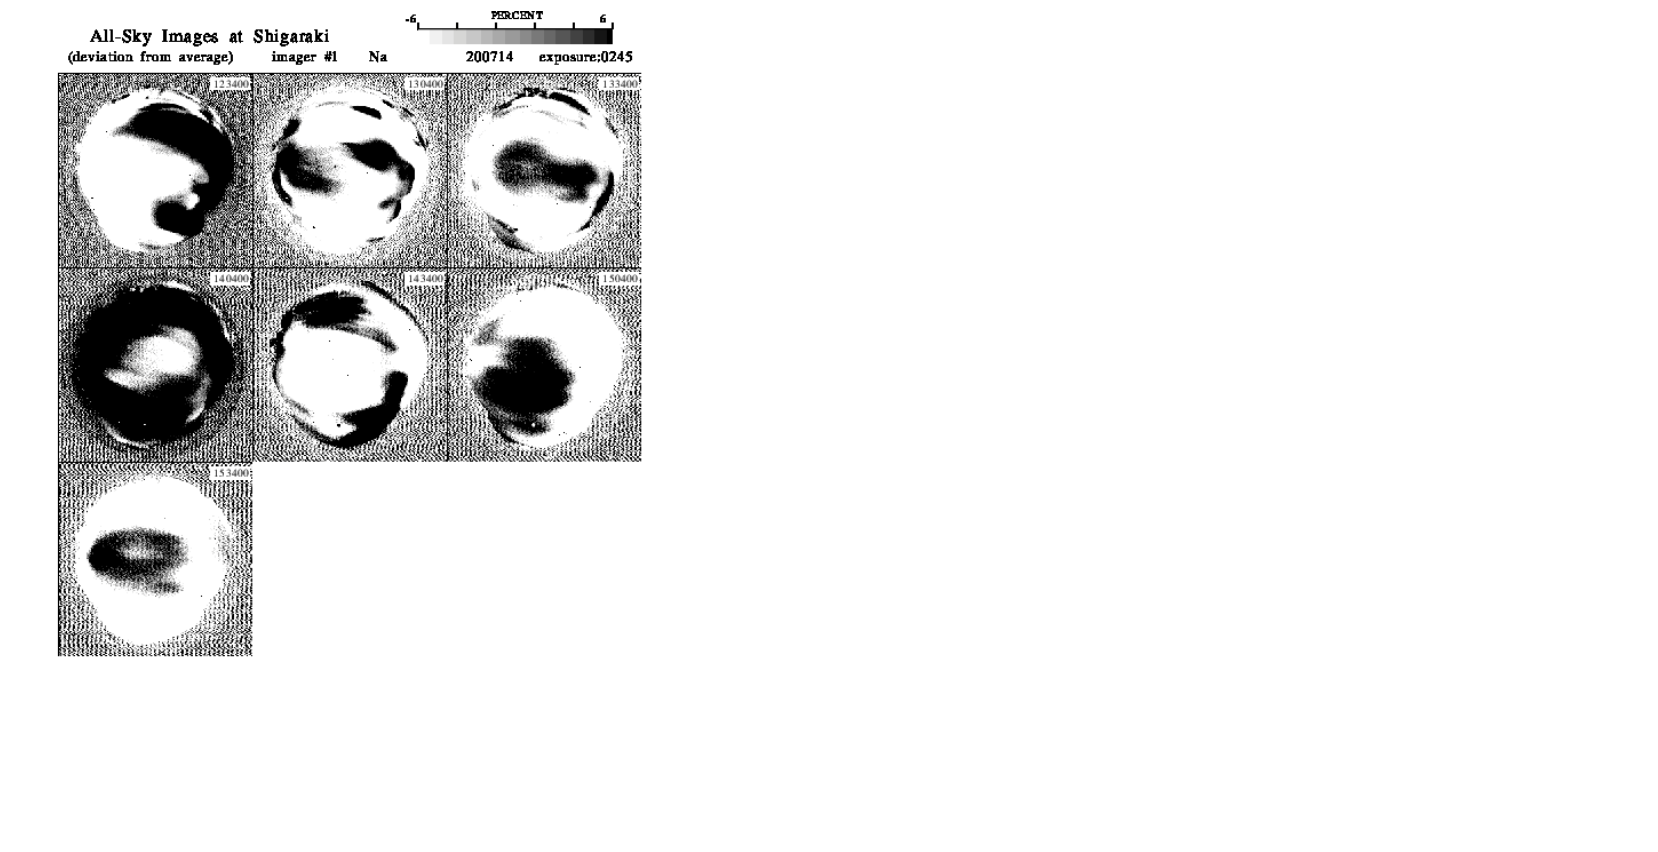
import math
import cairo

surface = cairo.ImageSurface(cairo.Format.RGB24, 1658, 852)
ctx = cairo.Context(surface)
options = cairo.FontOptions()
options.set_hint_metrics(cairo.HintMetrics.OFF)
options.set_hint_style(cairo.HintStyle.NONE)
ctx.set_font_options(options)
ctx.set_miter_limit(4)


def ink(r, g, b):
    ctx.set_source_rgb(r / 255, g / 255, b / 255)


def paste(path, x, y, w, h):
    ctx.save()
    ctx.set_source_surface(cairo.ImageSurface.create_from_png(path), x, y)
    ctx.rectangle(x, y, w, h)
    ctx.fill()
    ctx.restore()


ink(255, 255, 255)
ctx.paint()
paste("pic1.png", 57, 11, 585, 646)
surface.write_to_png("screenshot.png")
